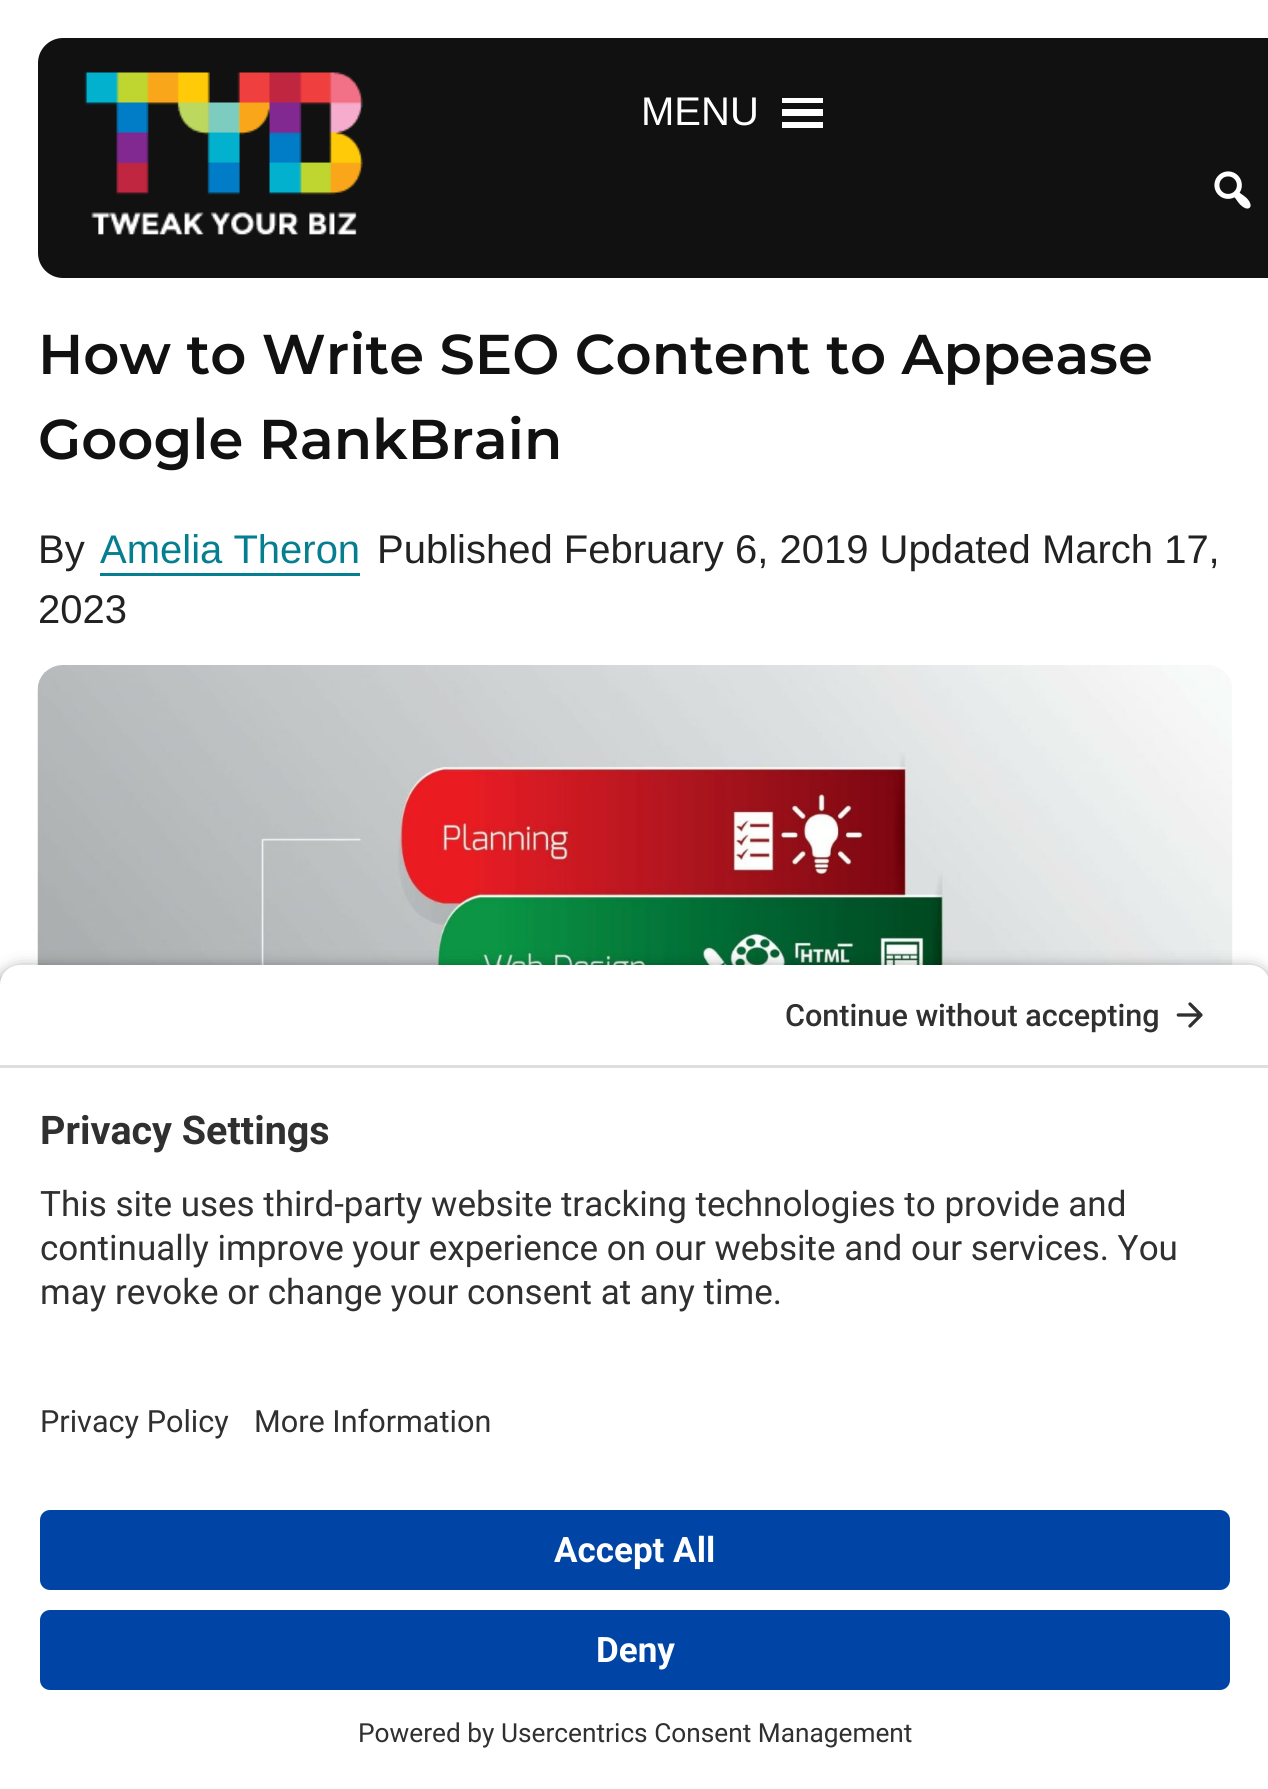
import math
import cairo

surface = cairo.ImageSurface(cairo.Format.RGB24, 1268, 1789)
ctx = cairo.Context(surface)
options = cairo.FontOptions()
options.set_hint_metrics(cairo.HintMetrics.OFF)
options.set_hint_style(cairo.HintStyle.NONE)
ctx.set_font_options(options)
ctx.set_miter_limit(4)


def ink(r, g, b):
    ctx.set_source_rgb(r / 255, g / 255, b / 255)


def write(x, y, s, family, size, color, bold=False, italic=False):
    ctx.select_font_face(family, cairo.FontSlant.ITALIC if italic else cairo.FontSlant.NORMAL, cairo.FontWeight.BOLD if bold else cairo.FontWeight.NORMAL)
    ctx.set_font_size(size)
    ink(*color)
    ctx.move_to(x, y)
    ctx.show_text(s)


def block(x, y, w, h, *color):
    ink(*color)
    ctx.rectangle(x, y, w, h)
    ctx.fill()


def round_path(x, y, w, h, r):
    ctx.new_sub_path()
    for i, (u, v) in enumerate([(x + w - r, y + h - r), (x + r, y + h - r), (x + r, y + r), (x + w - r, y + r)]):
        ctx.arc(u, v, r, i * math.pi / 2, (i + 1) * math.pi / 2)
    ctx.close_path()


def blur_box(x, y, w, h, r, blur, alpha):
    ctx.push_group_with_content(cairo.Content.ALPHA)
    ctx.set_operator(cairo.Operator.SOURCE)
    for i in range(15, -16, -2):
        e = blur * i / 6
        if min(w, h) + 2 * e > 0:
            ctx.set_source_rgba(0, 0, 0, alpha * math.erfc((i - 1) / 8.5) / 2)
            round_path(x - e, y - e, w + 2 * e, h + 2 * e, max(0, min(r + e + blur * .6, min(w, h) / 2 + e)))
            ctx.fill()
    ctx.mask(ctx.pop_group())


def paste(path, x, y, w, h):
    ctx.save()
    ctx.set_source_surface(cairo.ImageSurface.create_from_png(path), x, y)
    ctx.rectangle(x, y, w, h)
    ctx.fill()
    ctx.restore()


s1 = dict(family="Liberation Sans", size=40, color=(255, 255, 255))
s2 = dict(family="Montserrat SemiBold", size=56, color=(17, 17, 17))
s3 = dict(family="Liberation Sans", size=40, color=(34, 34, 34))
s4 = dict(family="Liberation Sans", size=40, color=(5, 126, 144))
s5 = dict(family="Roboto Medium", size=30.6, color=(48, 48, 48))
s6 = dict(family="Roboto", size=39.5, color=(48, 48, 48), bold=True)
s7 = dict(family="Roboto", size=35, color=(48, 48, 48))
s8 = dict(family="Roboto", size=30.6, color=(48, 48, 48))
s9 = dict(family="Roboto", size=35, color=(255, 255, 255), bold=True)
s10 = dict(family="Roboto", size=26.25, color=(48, 48, 48))

ink(255, 255, 255)
ctx.paint()
ink(17, 17, 17)
round_path(38, 38, 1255, 240, 25)
ctx.fill()
paste("pic1.png", 84, 72, 279, 164)
write(641, 125, "MENU", **s1)
ctx.new_path()
ctx.move_to(782, 128)
ctx.line_to(823, 128)
ctx.line_to(823, 122)
ctx.line_to(782, 122)
ctx.close_path()
ctx.move_to(782, 98)
ctx.line_to(782, 103)
ctx.line_to(823, 103)
ctx.line_to(823, 98)
ctx.close_path()
ctx.move_to(782, 116)
ctx.line_to(823, 116)
ctx.line_to(823, 109)
ctx.line_to(782, 109)
ctx.close_path()
ctx.fill()
paste("pic2.png", 1214, 171, 37, 38)
write(38, 374, "How to Write SEO Content to Appease", **s2)
write(38, 459, "Google RankBrain", **s2)
write(38, 563, "By", **s3)
write(100, 563, "Amelia Theron", **s4)
block(100, 573, 260, 3, 5, 126, 144)
write(377, 563, "Published February 6, 2019 Updated March 17,", **s3)
write(38, 623, "2023", **s3)
paste("pic3.png", 37, 665, 1196, 300)
ink(0, 0, 0)
blur_box(0, 973, 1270, 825, 20, 9, 0.8)
ink(255, 255, 255)
ctx.new_path()
ctx.move_to(20, 965)
ctx.line_to(1250, 965)
ctx.curve_to(1261, 965, 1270, 974, 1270, 985)
ctx.line_to(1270, 1068)
ctx.line_to(0, 1068)
ctx.line_to(0, 985)
ctx.curve_to(0, 974, 9, 965, 20, 965)
ctx.close_path()
ctx.fill()
block(0, 1065, 1268, 3, 222, 222, 222)
write(785, 1026, "Continue without accepting", **s5)
paste("pic4.png", 1176, 1002, 27, 26)
block(0, 1068, 1268, 721, 255, 255, 255)
write(40, 1144, "Privacy Settings", **s6)
write(40, 1216, "This site uses third-party website tracking technologies to provide and", **s7)
write(40, 1260, "continually improve your experience on our website and our services. You", **s7)
write(40, 1304, "may revoke or change your consent at any time.", **s7)
write(40, 1432, "Privacy Policy", **s8)
write(254, 1432, "More Information", **s8)
ink(0, 69, 165)
round_path(40, 1510, 1190, 80, 10)
ctx.fill()
write(554, 1562, "Accept All", **s9)
ink(0, 69, 165)
round_path(40, 1610, 1190, 80, 10)
ctx.fill()
write(596, 1662, "Deny", **s9)
write(358, 1742, "Powered by Usercentrics Consent Management", **s10)
surface.write_to_png("screenshot.png")
